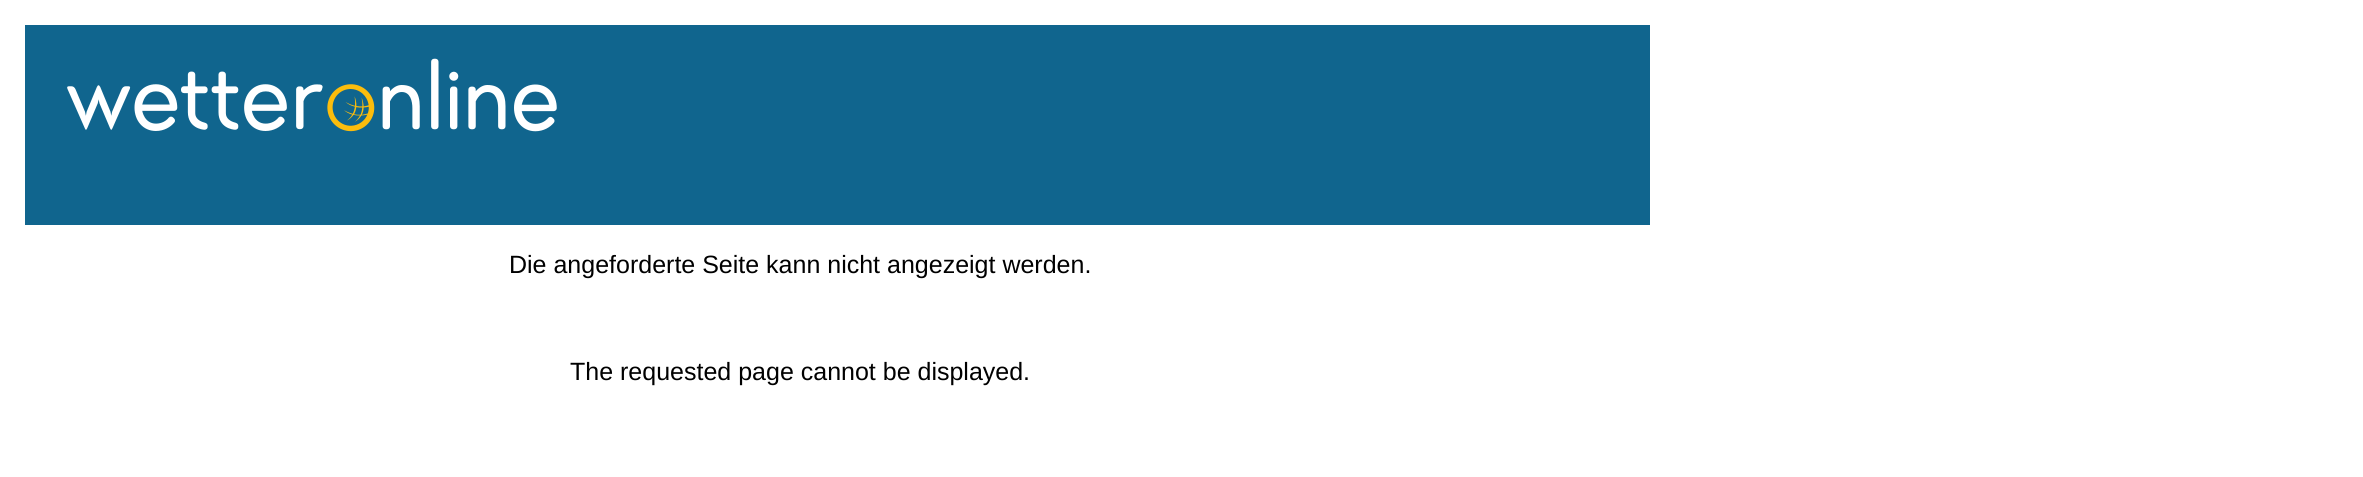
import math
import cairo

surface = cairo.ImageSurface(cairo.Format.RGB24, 2363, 477)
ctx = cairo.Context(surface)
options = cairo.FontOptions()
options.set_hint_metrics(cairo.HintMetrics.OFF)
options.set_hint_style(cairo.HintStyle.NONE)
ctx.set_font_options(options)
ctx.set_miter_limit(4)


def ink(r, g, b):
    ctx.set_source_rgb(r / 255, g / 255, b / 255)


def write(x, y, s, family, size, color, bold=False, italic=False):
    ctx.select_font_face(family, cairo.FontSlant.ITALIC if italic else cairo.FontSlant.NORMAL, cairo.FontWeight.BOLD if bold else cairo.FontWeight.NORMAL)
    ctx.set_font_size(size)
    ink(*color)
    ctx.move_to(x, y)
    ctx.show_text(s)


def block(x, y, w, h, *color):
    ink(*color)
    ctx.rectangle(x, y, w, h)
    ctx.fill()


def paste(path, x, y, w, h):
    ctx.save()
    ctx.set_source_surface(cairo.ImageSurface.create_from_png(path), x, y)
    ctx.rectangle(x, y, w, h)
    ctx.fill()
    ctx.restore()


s1 = dict(family="Liberation Sans", size=25, color=(0, 0, 0))

ink(255, 255, 255)
ctx.paint()
block(25, 25, 1625, 200, 16, 101, 142)
paste("pic1.png", 67, 58, 490, 74)
write(509, 273, "Die angeforderte Seite kann nicht angezeigt werden.", **s1)
write(570, 380, "The requested page cannot be displayed.", **s1)
surface.write_to_png("screenshot.png")
